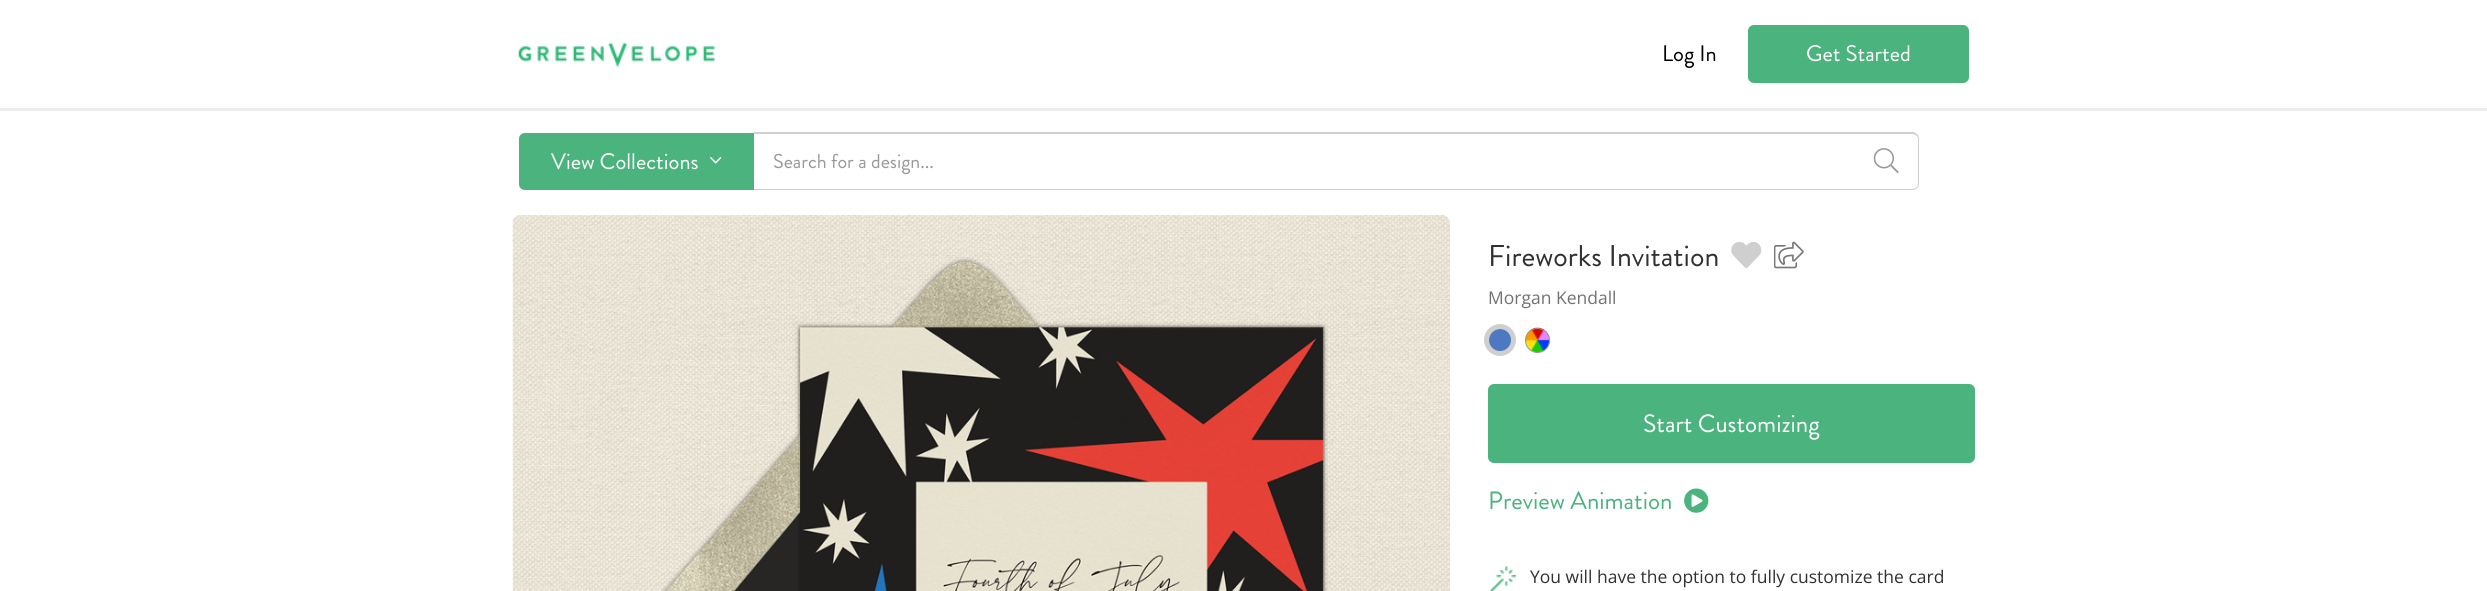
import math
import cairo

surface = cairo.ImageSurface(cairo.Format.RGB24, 2487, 591)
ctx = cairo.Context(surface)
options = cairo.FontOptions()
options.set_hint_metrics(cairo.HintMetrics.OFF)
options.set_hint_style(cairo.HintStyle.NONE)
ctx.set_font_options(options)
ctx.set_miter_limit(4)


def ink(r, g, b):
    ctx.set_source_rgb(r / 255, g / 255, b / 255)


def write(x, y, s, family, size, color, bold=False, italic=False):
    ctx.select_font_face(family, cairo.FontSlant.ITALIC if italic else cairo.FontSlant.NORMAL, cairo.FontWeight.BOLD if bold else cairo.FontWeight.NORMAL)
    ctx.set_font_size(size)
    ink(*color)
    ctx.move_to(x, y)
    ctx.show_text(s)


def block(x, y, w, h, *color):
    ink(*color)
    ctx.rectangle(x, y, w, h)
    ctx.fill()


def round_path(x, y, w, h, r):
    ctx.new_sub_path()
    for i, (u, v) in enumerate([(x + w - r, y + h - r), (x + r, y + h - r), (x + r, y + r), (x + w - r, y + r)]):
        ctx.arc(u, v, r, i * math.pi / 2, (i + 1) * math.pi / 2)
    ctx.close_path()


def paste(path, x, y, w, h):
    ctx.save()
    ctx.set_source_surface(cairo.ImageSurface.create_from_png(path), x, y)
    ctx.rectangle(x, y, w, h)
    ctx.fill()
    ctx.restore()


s1 = dict(family="Brandon Grotesque", size=22.5, color=(0, 0, 0))
s2 = dict(family="Brandon Grotesque", size=22.5, color=(255, 255, 255))
s3 = dict(family="Brandon Grotesque", size=20, color=(153, 153, 153))
s4 = dict(family="Brandon Grotesque", size=30, color=(49, 49, 49))
s5 = dict(family="Open Sans", size=17.5, color=(114, 114, 114))
s6 = dict(family="Brandon Grotesque", size=25, color=(255, 255, 255))
s7 = dict(family="Brandon Grotesque", size=25, color=(74, 179, 126))
s8 = dict(family="Open Sans", size=17.5, color=(49, 49, 49))

ink(255, 255, 255)
ctx.paint()
paste("pic1.png", 518, 42, 198, 26)
write(1662, 61, "Log In", **s1)
ink(74, 179, 126)
round_path(1748, 25, 221, 58, 6)
ctx.fill()
write(1806, 61, "Get Started", **s2)
block(0, 108, 2487, 3, 237, 237, 237)
ink(74, 179, 126)
ctx.new_path()
ctx.move_to(525, 133)
ctx.line_to(754, 133)
ctx.line_to(754, 190)
ctx.line_to(525, 190)
ctx.curve_to(521.5, 190, 519, 187.5, 519, 184)
ctx.line_to(519, 139)
ctx.curve_to(519, 135.5, 521.5, 133, 525, 133)
ctx.close_path()
ctx.fill()
write(551, 169, "View Collections", **s2)
paste("pic2.png", 710, 157, 12, 7)
ink(207, 207, 207)
ctx.set_fill_rule(cairo.FillRule.EVEN_ODD)
ctx.new_path()
ctx.move_to(754, 132)
ctx.line_to(1912, 132)
ctx.curve_to(1916, 132, 1919, 135, 1919, 139)
ctx.line_to(1919, 184)
ctx.curve_to(1919, 187, 1916, 190, 1912, 190)
ctx.line_to(754, 190)
ctx.close_path()
ctx.move_to(754, 134)
ctx.line_to(1912, 134)
ctx.curve_to(1915, 134, 1918, 136, 1918, 139)
ctx.line_to(1918, 184)
ctx.curve_to(1918, 187, 1915, 189, 1912, 189)
ctx.line_to(754, 189)
ctx.close_path()
ctx.fill()
write(773, 168, "Search for a design...", **s3)
paste("pic3.png", 1873, 148, 26, 26)
paste("pic4.png", 512, 215, 938, 376)
paste("pic5.png", 661, 257, 667, 334)
write(1488, 266, "Fireworks Invitation", **s4)
paste("pic6.png", 1731, 242, 31, 26)
paste("pic7.png", 1774, 241, 30, 28)
write(1488, 304, "Morgan Kendall", **s5)
ink(76, 121, 191)
ctx.new_path()
ctx.arc(1500.5, 340.5, 12, 0, 2 * math.pi)
ctx.fill_preserve()
ink(153, 153, 153)
ctx.set_line_width(1)
ctx.stroke()
ctx.arc(1500, 340, 13.5, 0, 2 * math.pi)
ink(207, 207, 207)
ctx.set_line_width(5)
ctx.stroke()
paste("pic8.png", 1525, 327, 25, 26)
ctx.arc(1537.5, 340.5, 12, 0, 2 * math.pi)
ink(153, 153, 153)
ctx.set_line_width(1)
ctx.stroke()
ink(74, 179, 126)
round_path(1488, 384, 487, 79, 6)
ctx.fill()
write(1643, 432, "Start Customizing", **s6)
write(1488, 509, "Preview Animation", **s7)
paste("pic9.png", 1684, 488, 25, 25)
paste("pic10.png", 1489, 566, 28, 25)
write(1530, 583, "You will have the option to fully customize the card", **s8)
surface.write_to_png("screenshot.png")
